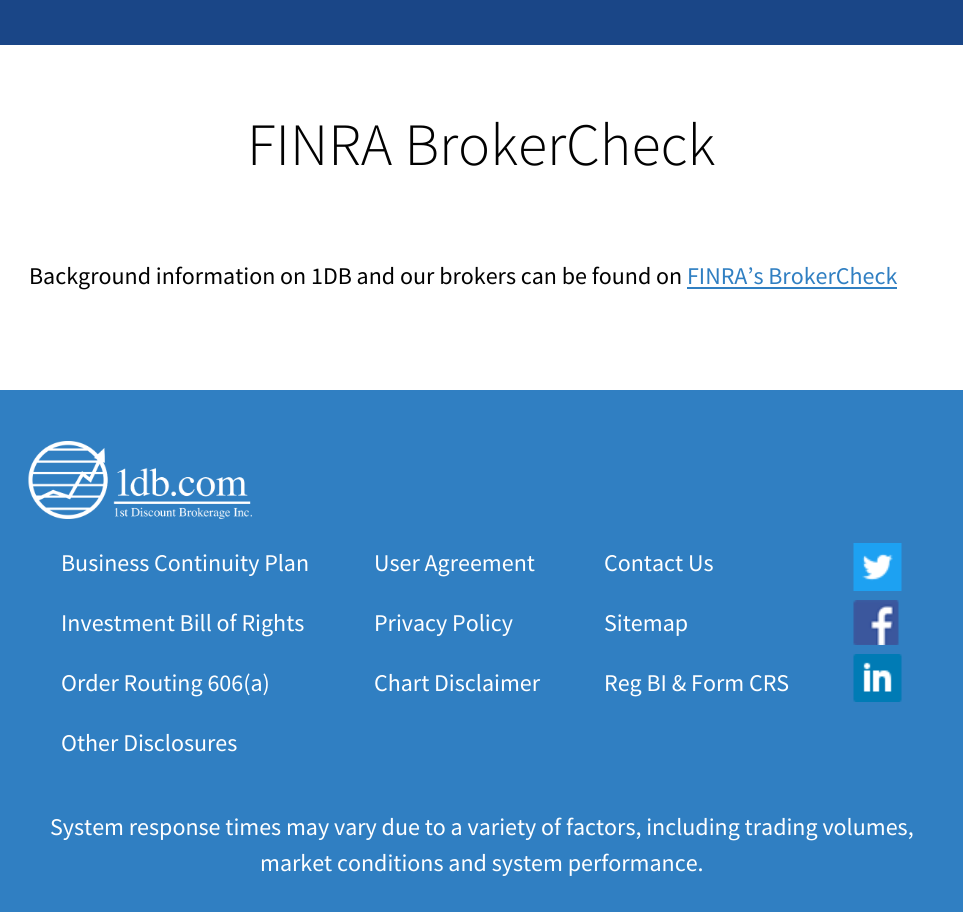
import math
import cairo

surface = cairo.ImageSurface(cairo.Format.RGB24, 963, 912)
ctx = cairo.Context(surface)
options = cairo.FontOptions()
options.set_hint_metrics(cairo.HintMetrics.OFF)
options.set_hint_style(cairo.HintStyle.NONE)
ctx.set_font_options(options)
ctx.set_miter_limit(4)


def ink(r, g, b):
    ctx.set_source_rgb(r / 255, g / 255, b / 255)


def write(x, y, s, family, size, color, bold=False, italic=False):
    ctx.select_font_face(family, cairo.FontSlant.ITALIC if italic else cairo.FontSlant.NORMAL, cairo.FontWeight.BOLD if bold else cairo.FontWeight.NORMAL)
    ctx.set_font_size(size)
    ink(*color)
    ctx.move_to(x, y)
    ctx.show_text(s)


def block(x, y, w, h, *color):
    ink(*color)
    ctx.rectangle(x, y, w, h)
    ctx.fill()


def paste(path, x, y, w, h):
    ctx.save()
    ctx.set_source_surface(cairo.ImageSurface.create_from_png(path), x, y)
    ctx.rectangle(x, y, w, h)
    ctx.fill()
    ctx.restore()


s1 = dict(family="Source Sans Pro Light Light", size=60, color=(1, 1, 1))
s2 = dict(family="Source Sans Pro", size=24, color=(1, 1, 1))
s3 = dict(family="Source Sans Pro", size=24, color=(48, 127, 194))
s4 = dict(family="Source Sans Pro", size=24, color=(255, 255, 255))

ink(255, 255, 255)
ctx.paint()
block(0, 0, 963, 45, 26, 70, 135)
write(247, 165, "FINRA BrokerCheck", **s1)
write(29, 284, "Background information on 1DB and our brokers can be found on", **s2)
write(687, 284, "FINRA’s BrokerCheck", **s3)
block(687, 287, 210, 2, 48, 127, 194)
block(0, 390, 963, 522, 48, 127, 194)
paste("pic1.png", 28, 441, 224, 78)
write(61, 571, "Business Continuity Plan", **s4)
write(61, 631, "Investment Bill of Rights", **s4)
write(61, 691, "Order Routing 606(a)", **s4)
write(61, 751, "Other Disclosures", **s4)
write(374, 571, "User Agreement", **s4)
write(374, 631, "Privacy Policy", **s4)
write(374, 691, "Chart Disclaimer", **s4)
write(604, 571, "Contact Us", **s4)
write(604, 631, "Sitemap", **s4)
write(604, 691, "Reg BI & Form CRS", **s4)
paste("pic2.png", 853, 543, 49, 48)
paste("pic3.png", 853, 600, 46, 45)
paste("pic4.png", 853, 654, 49, 48)
write(50, 835, "System response times may vary due to a variety of factors, including trading volumes,", **s4)
write(260, 871, "market conditions and system performance.", **s4)
surface.write_to_png("screenshot.png")
